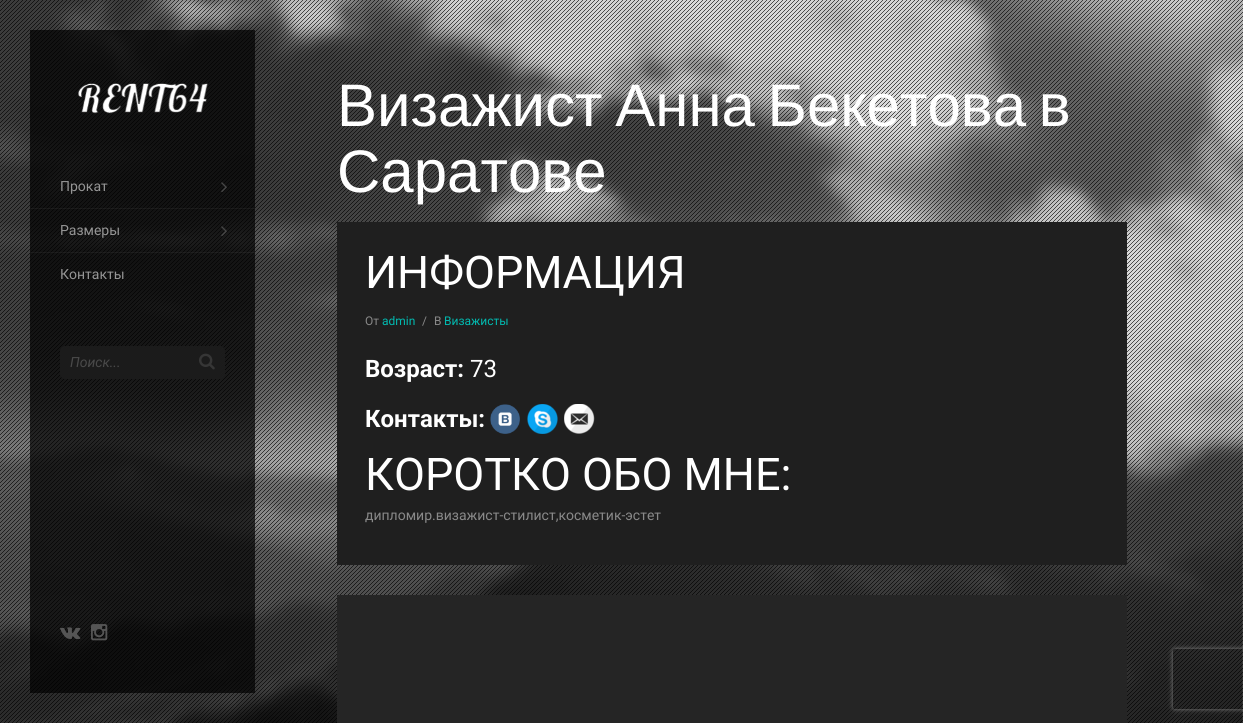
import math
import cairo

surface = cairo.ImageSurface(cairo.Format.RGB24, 1243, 723)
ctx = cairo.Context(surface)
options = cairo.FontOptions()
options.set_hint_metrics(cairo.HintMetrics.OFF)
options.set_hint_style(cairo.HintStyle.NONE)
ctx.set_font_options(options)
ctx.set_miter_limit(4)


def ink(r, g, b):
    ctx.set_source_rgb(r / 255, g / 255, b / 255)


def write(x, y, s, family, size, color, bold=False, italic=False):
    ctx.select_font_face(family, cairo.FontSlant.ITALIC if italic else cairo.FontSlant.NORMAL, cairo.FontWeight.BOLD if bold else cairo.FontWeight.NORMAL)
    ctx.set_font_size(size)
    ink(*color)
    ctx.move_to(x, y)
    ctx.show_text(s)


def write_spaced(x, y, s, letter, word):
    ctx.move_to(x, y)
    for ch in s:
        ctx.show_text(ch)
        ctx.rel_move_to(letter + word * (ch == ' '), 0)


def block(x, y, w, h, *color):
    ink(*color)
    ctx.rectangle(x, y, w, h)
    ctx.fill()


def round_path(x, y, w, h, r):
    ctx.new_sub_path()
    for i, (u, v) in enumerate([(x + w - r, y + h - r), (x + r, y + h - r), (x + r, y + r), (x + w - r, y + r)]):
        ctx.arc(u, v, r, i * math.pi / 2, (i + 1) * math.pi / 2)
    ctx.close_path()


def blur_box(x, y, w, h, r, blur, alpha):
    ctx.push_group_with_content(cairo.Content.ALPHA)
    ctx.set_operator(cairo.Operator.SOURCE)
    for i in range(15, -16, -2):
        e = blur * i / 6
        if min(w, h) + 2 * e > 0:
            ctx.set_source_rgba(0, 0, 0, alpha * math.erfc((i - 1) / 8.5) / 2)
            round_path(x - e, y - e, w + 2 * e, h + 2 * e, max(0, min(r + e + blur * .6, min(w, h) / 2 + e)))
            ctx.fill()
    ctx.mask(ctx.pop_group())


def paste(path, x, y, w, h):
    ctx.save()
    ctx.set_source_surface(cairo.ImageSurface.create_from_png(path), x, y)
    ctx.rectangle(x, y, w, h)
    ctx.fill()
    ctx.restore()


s1 = dict(family="Roboto", size=14, color=(149, 149, 149))
s2 = dict(family="Roboto", size=14, color=(73, 73, 73), italic=True)
s3 = dict(family="Liberation Sans", size=60, color=(255, 255, 255))
s4 = dict(family="Roboto", size=45, color=(255, 255, 255))
s5 = dict(family="Roboto", size=12, color=(137, 137, 137))
s6 = dict(family="Roboto", size=12, color=(1, 186, 176))
s7 = dict(family="Roboto", size=24, color=(255, 255, 255), bold=True)
s8 = dict(family="Roboto", size=24, color=(255, 255, 255))
s9 = dict(family="Roboto", size=14, color=(137, 137, 137))

ink(255, 255, 255)
ctx.paint()
paste("pic1.png", 1242, 0, 1, 723)
paste("pic8.png", 0, 0, 1243, 723)
paste("pic9.png", 0, 0, 1243, 723)
ctx.set_source_rgba(0, 0, 0, 0.7)
ctx.rectangle(30, 30, 225, 663)
ctx.fill()
paste("pic2.png", 78, 83, 130, 31)
ctx.set_source_rgba(1, 1, 1, 0.05)
ctx.rectangle(30, 208, 225, 1)
ctx.fill()
write(60, 191, "Прокат", **s1)
paste("pic3.png", 221, 182, 6, 10)
ctx.set_source_rgba(1, 1, 1, 0.05)
ctx.rectangle(30, 252, 225, 1)
ctx.fill()
write(60, 235, "Размеры", **s1)
paste("pic4.png", 221, 226, 6, 10)
write(60, 279, "Контакты", **s1)
ink(27, 27, 27)
round_path(60, 346, 165, 33, 5)
ctx.fill()
write(70, 367, "Поиск...", **s2)
paste("pic5.png", 199, 353, 16, 17)
paste("pic6.png", 60, 627, 21, 12)
paste("pic7.png", 91, 624, 17, 17)
ctx.select_font_face("Liberation Sans")
ctx.set_font_size(60)
ink(255, 255, 255)
write_spaced(337, 126, "Визажист Анна Бекетова в", 0, -4)
write(337, 192, "Саратове", **s3)
block(337, 222, 790, 343, 31, 31, 31)
write(365, 288, "ИНФОРМАЦИЯ", **s4)
write(365, 325, "От", **s5)
write(382, 325, "admin", **s6)
write(422, 325, "/", **s5)
write(434, 325, "В", **s5)
write(444, 325, "Визажисты", **s6)
write(365, 377, "Возраст:", **s7)
write(470, 377, "73", **s8)
write(365, 427, "Контакты:", **s7)
paste("pic10.png", 490, 404, 30, 30)
paste("pic11.png", 527, 404, 31, 30)
paste("pic12.png", 564, 404, 31, 30)
write(365, 490, "КОРОТКО ОБО МНЕ:", **s4)
write(365, 520, "дипломир.визажист-стилист,косметик-эстет", **s9)
block(337, 595, 790, 128, 37, 37, 37)
ctx.save()
ctx.set_fill_rule(cairo.FillRule.EVEN_ODD)
ctx.new_path()
ctx.move_to(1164, 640)
ctx.line_to(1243, 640)
ctx.line_to(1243, 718)
ctx.line_to(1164, 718)
ctx.close_path()
ctx.move_to(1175, 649)
ctx.line_to(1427, 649)
ctx.curve_to(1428, 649, 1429, 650, 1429, 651)
ctx.line_to(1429, 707)
ctx.curve_to(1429, 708, 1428, 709, 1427, 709)
ctx.line_to(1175, 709)
ctx.curve_to(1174, 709, 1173, 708, 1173, 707)
ctx.line_to(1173, 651)
ctx.curve_to(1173, 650, 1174, 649, 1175, 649)
ctx.close_path()
ctx.clip()
ink(128, 128, 128)
blur_box(1173, 649, 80, 60, 2, 2.5, 1)
ctx.restore()
surface.write_to_png("screenshot.png")
